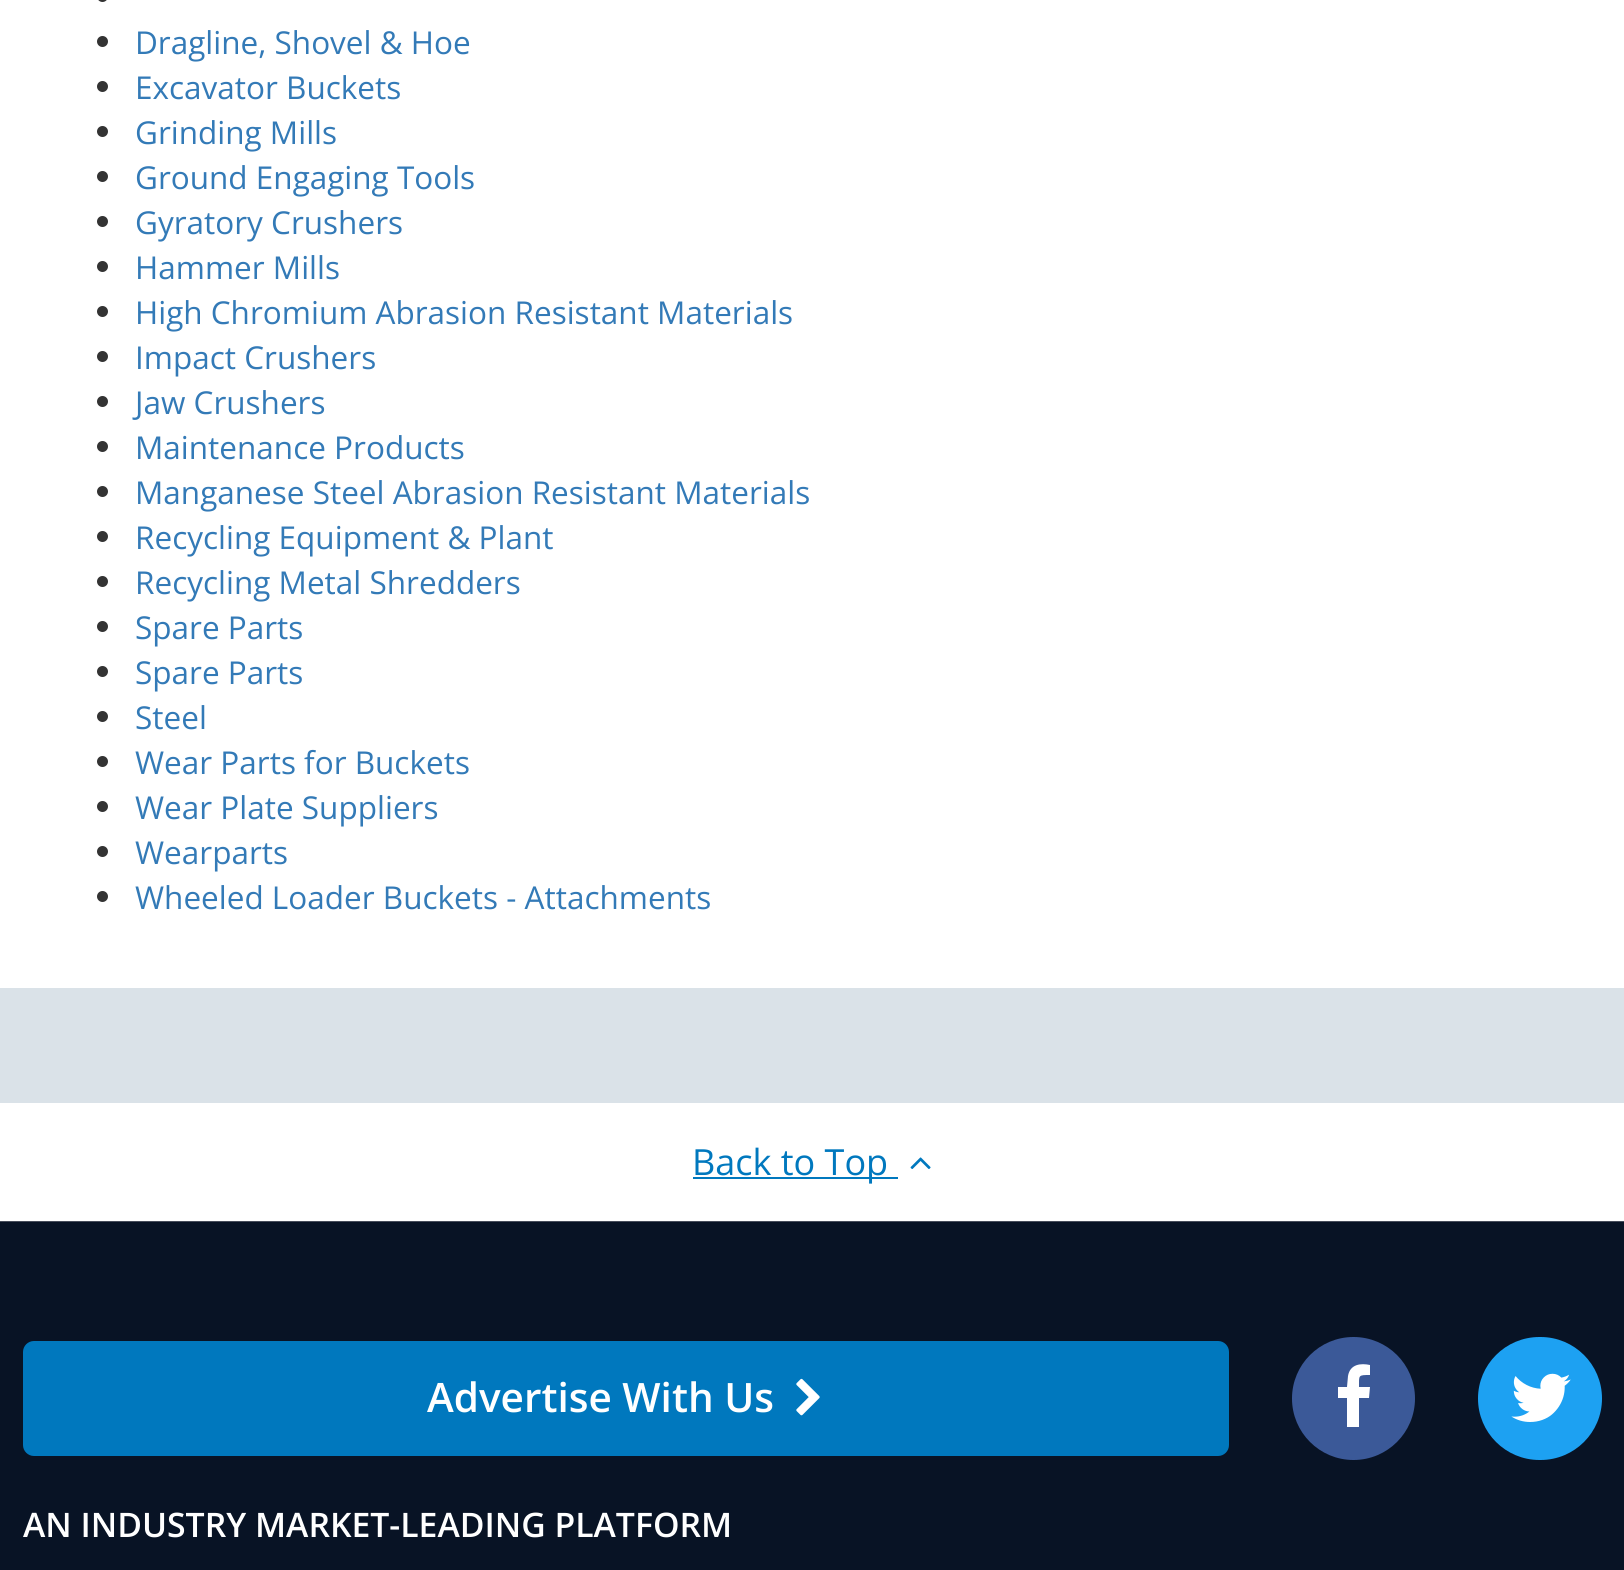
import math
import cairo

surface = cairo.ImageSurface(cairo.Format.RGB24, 1624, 1570)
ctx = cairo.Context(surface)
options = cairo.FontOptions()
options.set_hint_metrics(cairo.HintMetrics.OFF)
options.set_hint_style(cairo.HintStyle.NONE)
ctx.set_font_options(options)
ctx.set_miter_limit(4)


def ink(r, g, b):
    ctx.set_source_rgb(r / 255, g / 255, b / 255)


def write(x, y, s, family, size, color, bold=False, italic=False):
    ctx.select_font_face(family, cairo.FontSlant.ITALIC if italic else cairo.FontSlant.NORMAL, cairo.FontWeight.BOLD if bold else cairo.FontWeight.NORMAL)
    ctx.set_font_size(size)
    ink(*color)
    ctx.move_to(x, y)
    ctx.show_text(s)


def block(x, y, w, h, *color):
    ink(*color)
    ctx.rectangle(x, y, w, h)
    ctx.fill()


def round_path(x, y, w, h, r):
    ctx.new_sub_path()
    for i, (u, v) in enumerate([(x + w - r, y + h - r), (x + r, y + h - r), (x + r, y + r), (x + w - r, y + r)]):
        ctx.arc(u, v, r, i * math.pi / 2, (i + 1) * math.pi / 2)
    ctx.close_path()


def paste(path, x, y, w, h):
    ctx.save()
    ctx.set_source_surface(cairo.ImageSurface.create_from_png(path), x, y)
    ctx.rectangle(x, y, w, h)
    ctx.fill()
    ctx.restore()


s1 = dict(family="Open Sans", size=31.5, color=(51, 122, 183))
s2 = dict(family="Open Sans", size=36, color=(0, 120, 190))
s3 = dict(family="Open Sans SemiBold", size=40.5, color=(255, 255, 255))
s4 = dict(family="Open Sans SemiBold", size=33.75, color=(255, 255, 255))

ink(255, 255, 255)
ctx.paint()
block(0, 988, 1624, 115, 218, 226, 232)
ink(51, 51, 51)
round_path(97, -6, 11, 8, 5.5)
ctx.fill()
ctx.arc(102.5, 41.5, 5.5, 0, 2 * math.pi)
ctx.fill()
write(135, 54, "Dragline, Shovel & Hoe", **s1)
ink(51, 51, 51)
ctx.new_path()
ctx.arc(102.5, 86.5, 5.5, 0, 2 * math.pi)
ctx.fill()
write(135, 99, "Excavator Buckets", **s1)
ink(51, 51, 51)
ctx.new_path()
ctx.arc(102.5, 131.5, 5.5, 0, 2 * math.pi)
ctx.fill()
write(135, 144, "Grinding Mills", **s1)
ink(51, 51, 51)
ctx.new_path()
ctx.arc(102.5, 176.5, 5.5, 0, 2 * math.pi)
ctx.fill()
write(135, 189, "Ground Engaging Tools", **s1)
ink(51, 51, 51)
ctx.new_path()
ctx.arc(102.5, 221.5, 5.5, 0, 2 * math.pi)
ctx.fill()
write(135, 234, "Gyratory Crushers", **s1)
ink(51, 51, 51)
ctx.new_path()
ctx.arc(102.5, 266.5, 5.5, 0, 2 * math.pi)
ctx.fill()
write(135, 279, "Hammer Mills", **s1)
ink(51, 51, 51)
ctx.new_path()
ctx.arc(102.5, 311.5, 5.5, 0, 2 * math.pi)
ctx.fill()
write(135, 324, "High Chromium Abrasion Resistant Materials", **s1)
ink(51, 51, 51)
ctx.new_path()
ctx.arc(102.5, 356.5, 5.5, 0, 2 * math.pi)
ctx.fill()
write(135, 369, "Impact Crushers", **s1)
ink(51, 51, 51)
ctx.new_path()
ctx.arc(102.5, 401.5, 5.5, 0, 2 * math.pi)
ctx.fill()
write(135, 414, "Jaw Crushers", **s1)
ink(51, 51, 51)
ctx.new_path()
ctx.arc(102.5, 446.5, 5.5, 0, 2 * math.pi)
ctx.fill()
write(135, 459, "Maintenance Products", **s1)
ink(51, 51, 51)
ctx.new_path()
ctx.arc(102.5, 491.5, 5.5, 0, 2 * math.pi)
ctx.fill()
write(135, 504, "Manganese Steel Abrasion Resistant Materials", **s1)
ink(51, 51, 51)
ctx.new_path()
ctx.arc(102.5, 536.5, 5.5, 0, 2 * math.pi)
ctx.fill()
write(135, 549, "Recycling Equipment & Plant", **s1)
ink(51, 51, 51)
ctx.new_path()
ctx.arc(102.5, 581.5, 5.5, 0, 2 * math.pi)
ctx.fill()
write(135, 594, "Recycling Metal Shredders", **s1)
ink(51, 51, 51)
ctx.new_path()
ctx.arc(102.5, 626.5, 5.5, 0, 2 * math.pi)
ctx.fill()
write(135, 639, "Spare Parts", **s1)
ink(51, 51, 51)
ctx.new_path()
ctx.arc(102.5, 671.5, 5.5, 0, 2 * math.pi)
ctx.fill()
write(135, 684, "Spare Parts", **s1)
ink(51, 51, 51)
ctx.new_path()
ctx.arc(102.5, 716.5, 5.5, 0, 2 * math.pi)
ctx.fill()
write(135, 729, "Steel", **s1)
ink(51, 51, 51)
ctx.new_path()
ctx.arc(102.5, 761.5, 5.5, 0, 2 * math.pi)
ctx.fill()
write(135, 774, "Wear Parts for Buckets", **s1)
ink(51, 51, 51)
ctx.new_path()
ctx.arc(102.5, 806.5, 5.5, 0, 2 * math.pi)
ctx.fill()
write(135, 819, "Wear Plate Suppliers", **s1)
ink(51, 51, 51)
ctx.new_path()
ctx.arc(102.5, 851.5, 5.5, 0, 2 * math.pi)
ctx.fill()
write(135, 864, "Wearparts", **s1)
ink(51, 51, 51)
ctx.new_path()
ctx.arc(102.5, 896.5, 5.5, 0, 2 * math.pi)
ctx.fill()
write(135, 909, "Wheeled Loader Buckets - Attachments", **s1)
block(693, 1177, 205, 2, 0, 120, 190)
write(692, 1175, "Back to Top", **s2)
paste("pic1.png", 910, 1157, 21, 12)
block(0, 1222, 1624, 348, 8, 19, 37)
block(0, 1221, 1624, 1, 71, 77, 91)
ink(0, 120, 190)
round_path(24, 1342, 1204, 113, 10)
ctx.fill_preserve()
ctx.stroke()
write(427, 1412, "Advertise With Us", **s3)
paste("pic2.png", 796, 1378, 24, 38)
ink(59, 89, 152)
ctx.arc(1353.5, 1398.5, 61.5, 0, 2 * math.pi)
ctx.fill()
ink(255, 255, 255)
ctx.new_path()
ctx.move_to(1370, 1365)
ctx.line_to(1370, 1375)
ctx.curve_to(1358, 1375, 1359, 1375, 1359, 1387)
ctx.line_to(1370, 1387)
ctx.line_to(1369, 1398)
ctx.line_to(1359, 1398)
ctx.line_to(1359, 1427)
ctx.line_to(1347, 1427)
ctx.line_to(1347, 1398)
ctx.line_to(1338, 1398)
ctx.line_to(1338, 1387)
ctx.line_to(1347, 1387)
ctx.line_to(1348, 1376)
ctx.curve_to(1350, 1364, 1361, 1363, 1370, 1365)
ctx.close_path()
ctx.fill()
ink(29, 161, 242)
round_path(1478, 1337, 124, 123, 61.5)
ctx.fill()
paste("pic3.png", 1511, 1373, 60, 49)
write(23, 1537, "AN INDUSTRY MARKET-LEADING PLATFORM", **s4)
surface.write_to_png("screenshot.png")
